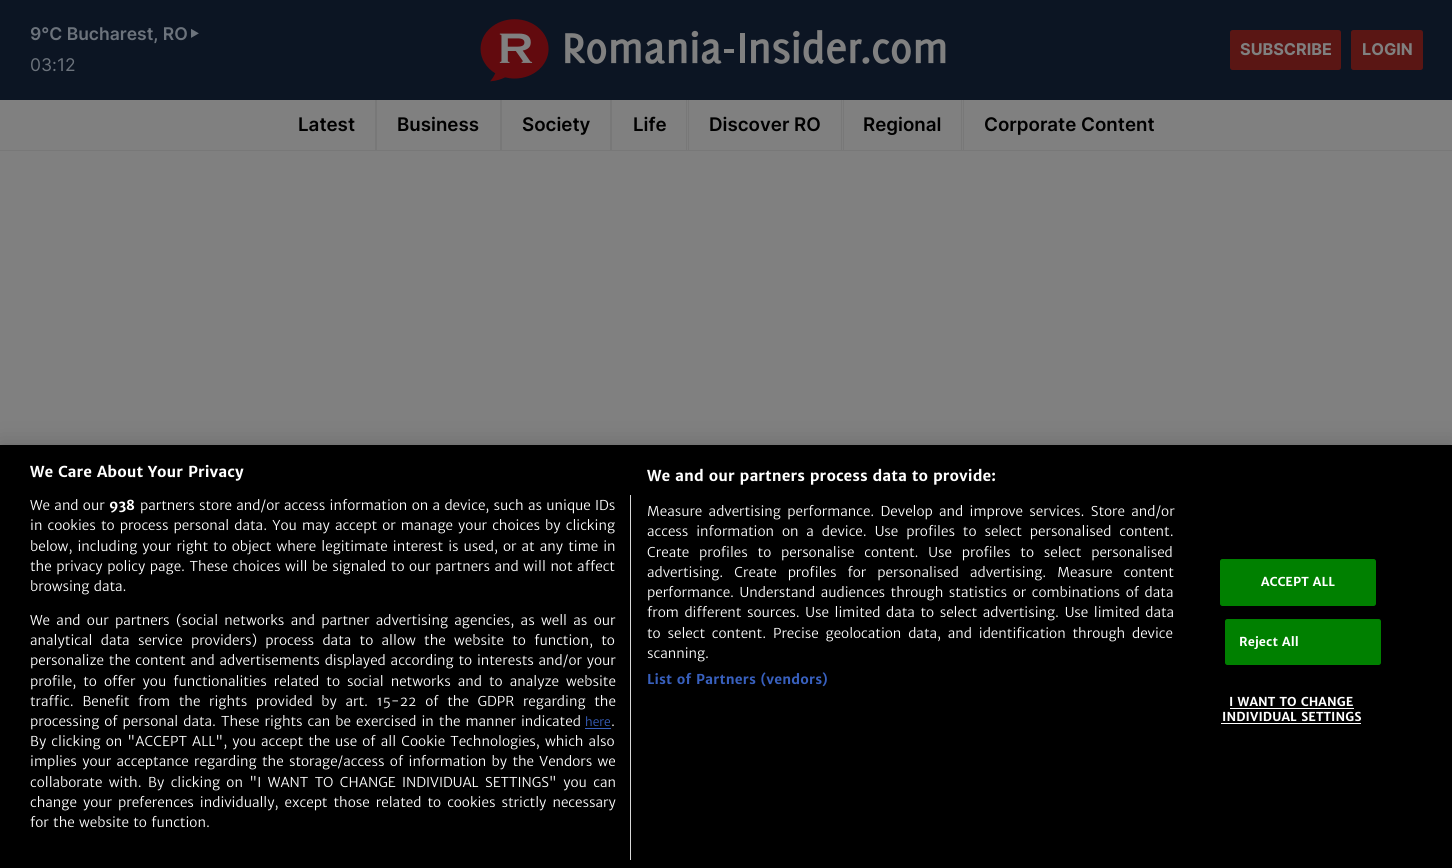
import math
import cairo

surface = cairo.ImageSurface(cairo.Format.RGB24, 1452, 868)
ctx = cairo.Context(surface)
options = cairo.FontOptions()
options.set_hint_metrics(cairo.HintMetrics.OFF)
options.set_hint_style(cairo.HintStyle.NONE)
ctx.set_font_options(options)
ctx.set_miter_limit(4)


def ink(r, g, b):
    ctx.set_source_rgb(r / 255, g / 255, b / 255)


def write(x, y, s, family, size, color, bold=False, italic=False):
    ctx.select_font_face(family, cairo.FontSlant.ITALIC if italic else cairo.FontSlant.NORMAL, cairo.FontWeight.BOLD if bold else cairo.FontWeight.NORMAL)
    ctx.set_font_size(size)
    ink(*color)
    ctx.move_to(x, y)
    ctx.show_text(s)


def write_spaced(x, y, s, letter, word):
    ctx.move_to(x, y)
    for ch in s:
        ctx.show_text(ch)
        ctx.rel_move_to(letter + word * (ch == ' '), 0)


def block(x, y, w, h, *color):
    ink(*color)
    ctx.rectangle(x, y, w, h)
    ctx.fill()


def round_path(x, y, w, h, r):
    ctx.new_sub_path()
    for i, (u, v) in enumerate([(x + w - r, y + h - r), (x + r, y + h - r), (x + r, y + r), (x + w - r, y + r)]):
        ctx.arc(u, v, r, i * math.pi / 2, (i + 1) * math.pi / 2)
    ctx.close_path()


def blur_box(x, y, w, h, r, blur, alpha):
    ctx.push_group_with_content(cairo.Content.ALPHA)
    ctx.set_operator(cairo.Operator.SOURCE)
    for i in range(15, -16, -2):
        e = blur * i / 6
        if min(w, h) + 2 * e > 0:
            ctx.set_source_rgba(0, 0, 0, alpha * math.erfc((i - 1) / 8.5) / 2)
            round_path(x - e, y - e, w + 2 * e, h + 2 * e, max(0, min(r + e + blur * .6, min(w, h) / 2 + e)))
            ctx.fill()
    ctx.mask(ctx.pop_group())


def paste(path, x, y, w, h):
    ctx.save()
    ctx.set_source_surface(cairo.ImageSurface.create_from_png(path), x, y)
    ctx.rectangle(x, y, w, h)
    ctx.fill()
    ctx.restore()


s1 = dict(family="Inter SemiBold", size=17.5, color=(108, 115, 124))
s2 = dict(family="Inter SemiBold", size=10, color=(108, 115, 124))
s3 = dict(family="Inter", size=17.5, color=(108, 115, 124))
s4 = dict(family="Inter", size=16.25, color=(128, 128, 128), bold=True)
s5 = dict(family="Inter SemiBold", size=18.75, color=(0, 0, 0))
s6 = dict(family="Merriweather Sans", size=15, color=(255, 255, 255), bold=True)
s7 = dict(family="Merriweather Sans Light", size=13.5, color=(255, 255, 255))
s8 = dict(family="Merriweather Sans", size=13.5, color=(255, 255, 255), bold=True)
s9 = dict(family="Merriweather Sans Light", size=12, color=(56, 96, 190))

ink(128, 128, 128)
ctx.paint()
block(0, 0, 1452, 100, 12, 21, 35)
write(30, 40, "9°C Bucharest, RO", **s1)
write(190, 37, "▶", **s2)
write(30, 71, "03:12", **s3)
paste("pic1.png", 480, 19, 466, 63)
ink(90, 22, 20)
round_path(1230, 30, 111, 40, 2.5)
ctx.fill()
write(1240, 55, "SUBSCRIBE", **s4)
ink(90, 22, 20)
round_path(1351, 30, 72, 40, 2.5)
ctx.fill()
write(1362, 55, "LOGIN", **s4)
block(0, 150, 1452, 1, 120, 120, 120)
block(375, 100, 2, 50, 120, 120, 120)
write(298, 131, "Latest", **s5)
block(500, 100, 2, 50, 120, 120, 120)
write(397, 131, "Business", **s5)
block(610, 100, 2, 50, 120, 120, 120)
write(522, 131, "Society", **s5)
block(686, 100, 1, 50, 120, 120, 120)
write(633, 131, "Life", **s5)
block(841, 100, 1, 50, 120, 120, 120)
block(688, 100, 1, 50, 120, 120, 120)
write(709, 131, "Discover RO", **s5)
block(961, 100, 1, 50, 120, 120, 120)
block(843, 100, 1, 50, 120, 120, 120)
write(863, 131, "Regional", **s5)
block(963, 100, 1, 50, 120, 120, 120)
write(984, 131, "Corporate Content", **s5)
ink(0, 0, 0)
blur_box(0, 445, 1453, 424, 0, 11, 0.2)
block(0, 445, 1452, 423, 0, 0, 0)
write(30, 477, "We Care About Your Privacy", **s6)
write(647, 481, "We and our partners process data to provide:", **s6)
ctx.select_font_face("Merriweather Sans Light")
ctx.set_font_size(13.5)
write_spaced(647, 516, "Measure advertising performance. Develop and improve services. Store and/or", 0, 2)
write_spaced(647, 536, "access information on a device. Use profiles to select personalised content.", 0, 3.6)
write_spaced(647, 557, "Create profiles to personalise content. Use profiles to select personalised", 0, 5.5)
write_spaced(647, 577, "advertising. Create profiles for personalised advertising. Measure content", 0, 6.75)
write_spaced(647, 597, "performance. Understand audiences through statistics or combinations of data", 0, 1.25)
write_spaced(647, 617, "from different sources. Use limited data to select advertising. Use limited data", 0, 1.25)
write_spaced(647, 638, "to select content. Precise geolocation data, and identification through device", 0, 2.5)
write(647, 658, "scanning.", **s7)
ctx.select_font_face("Merriweather Sans", cairo.FontSlant.NORMAL, cairo.FontWeight.BOLD)
ink(56, 96, 190)
write_spaced(647, 684, "List of Partners (vendors)", 0.15, 0)
block(630, 495, 1, 365, 216, 216, 216)
write(30, 510, "We and our", **s7)
write(109, 510, "938", **s8)
write(140, 510, "partners store and/or access information on a device, such as unique IDs", **s7)
write_spaced(30, 530, "in cookies to process personal data. You may accept or manage your choices by clicking", 0, 0.8)
write_spaced(30, 551, "below, including your right to object where legitimate interest is used, or at any time in", 0, 0.75)
write_spaced(30, 571, "the privacy policy page. These choices will be signaled to our partners and will not affect", 0, 0.25)
write(30, 591, "browsing data.", **s7)
write_spaced(30, 625, "We and our partners (social networks and partner advertising agencies, as well as our", 0, 2)
write_spaced(30, 645, "analytical data service providers) process data to allow the website to function, to", 0, 4)
write_spaced(30, 665, "personalize the content and advertisements displayed according to interests and/or your", 0, 0.5)
write_spaced(30, 686, "profile, to offer you functionalities related to social networks and to analyze website", 0, 2.75)
write_spaced(30, 706, "traffic. Benefit from the rights provided by art. 15-22 of the GDPR regarding the", 0, 4.4)
write_spaced(30, 726, "processing of personal data. These rights can be exercised in the manner indicated", 0, 0.7)
write(585, 726, "here", **s9)
block(585, 728, 26, 1, 56, 96, 190)
write(611, 726, ".", **s7)
write_spaced(30, 746, "By clicking on \"ACCEPT ALL\", you accept the use of all Cookie Technologies, which also", 0, 0.8)
write_spaced(30, 766, "implies your acceptance regarding the storage/access of information by the Vendors we", 0, 1)
write_spaced(30, 787, "collaborate with. By clicking on \"I WANT TO CHANGE INDIVIDUAL SETTINGS\" you can", 0, 2.1)
write_spaced(30, 807, "change your preferences individually, except those related to cookies strictly necessary", 0, 1.75)
write(30, 827, "for the website to function.", **s7)
ink(0, 128, 0)
round_path(1220.5, 559.5, 155, 46, 2)
ctx.fill_preserve()
ctx.set_line_width(1)
ctx.stroke()
ctx.select_font_face("Merriweather Sans", cairo.FontSlant.NORMAL, cairo.FontWeight.BOLD)
ctx.set_font_size(12.25)
ink(255, 255, 255)
write_spaced(1261, 586, "ACCEPT ALL", 0.1, 0)
ink(0, 128, 0)
round_path(1225.5, 619.5, 155, 45, 2)
ctx.fill_preserve()
ctx.stroke()
ink(255, 255, 255)
write_spaced(1239, 646, "Reject All", 0.1, 0)
write_spaced(1229, 706, "I WANT TO CHANGE", 0.1, 0)
block(1230, 708, 124, 1, 255, 255, 255)
write_spaced(1222, 721, "INDIVIDUAL SETTINGS", 0.1, 0)
block(1221, 723, 140, 1, 255, 255, 255)
surface.write_to_png("screenshot.png")
